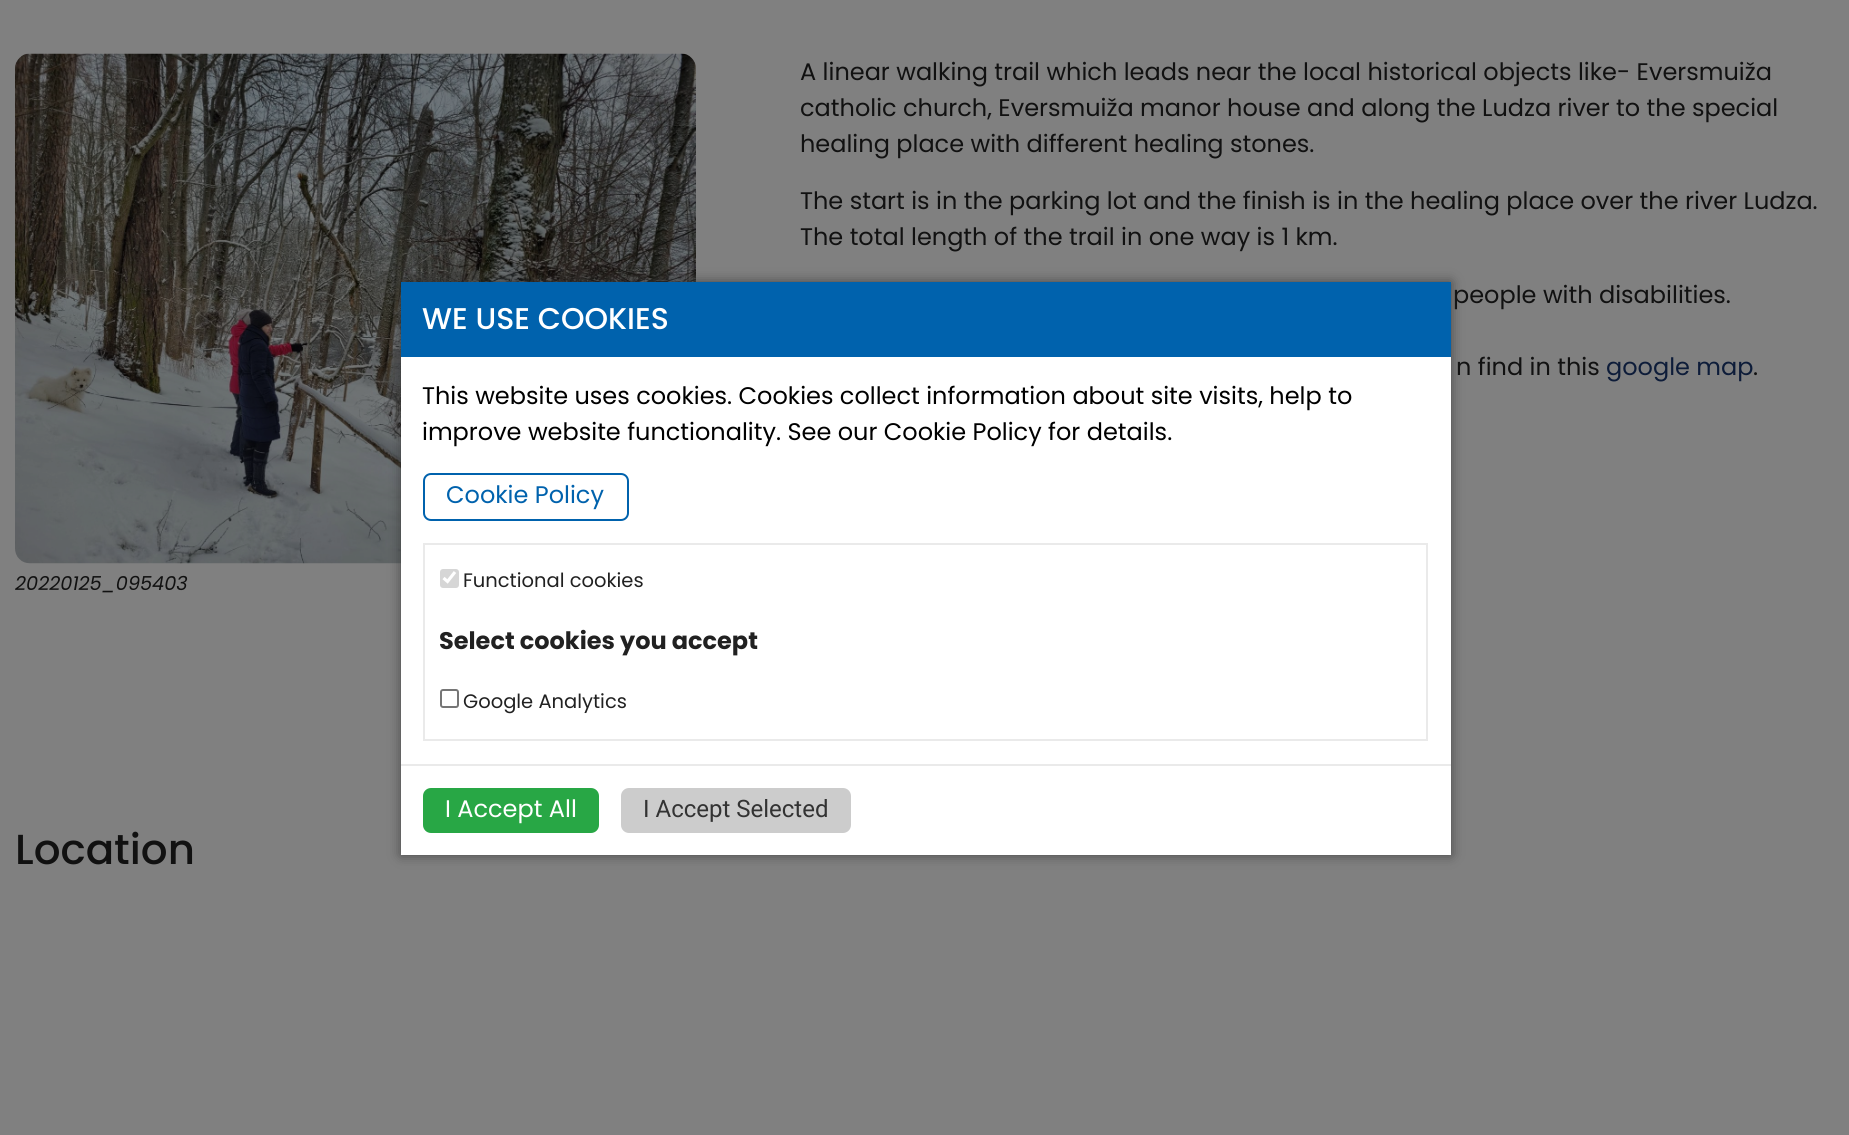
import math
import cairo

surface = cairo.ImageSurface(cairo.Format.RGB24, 1849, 1135)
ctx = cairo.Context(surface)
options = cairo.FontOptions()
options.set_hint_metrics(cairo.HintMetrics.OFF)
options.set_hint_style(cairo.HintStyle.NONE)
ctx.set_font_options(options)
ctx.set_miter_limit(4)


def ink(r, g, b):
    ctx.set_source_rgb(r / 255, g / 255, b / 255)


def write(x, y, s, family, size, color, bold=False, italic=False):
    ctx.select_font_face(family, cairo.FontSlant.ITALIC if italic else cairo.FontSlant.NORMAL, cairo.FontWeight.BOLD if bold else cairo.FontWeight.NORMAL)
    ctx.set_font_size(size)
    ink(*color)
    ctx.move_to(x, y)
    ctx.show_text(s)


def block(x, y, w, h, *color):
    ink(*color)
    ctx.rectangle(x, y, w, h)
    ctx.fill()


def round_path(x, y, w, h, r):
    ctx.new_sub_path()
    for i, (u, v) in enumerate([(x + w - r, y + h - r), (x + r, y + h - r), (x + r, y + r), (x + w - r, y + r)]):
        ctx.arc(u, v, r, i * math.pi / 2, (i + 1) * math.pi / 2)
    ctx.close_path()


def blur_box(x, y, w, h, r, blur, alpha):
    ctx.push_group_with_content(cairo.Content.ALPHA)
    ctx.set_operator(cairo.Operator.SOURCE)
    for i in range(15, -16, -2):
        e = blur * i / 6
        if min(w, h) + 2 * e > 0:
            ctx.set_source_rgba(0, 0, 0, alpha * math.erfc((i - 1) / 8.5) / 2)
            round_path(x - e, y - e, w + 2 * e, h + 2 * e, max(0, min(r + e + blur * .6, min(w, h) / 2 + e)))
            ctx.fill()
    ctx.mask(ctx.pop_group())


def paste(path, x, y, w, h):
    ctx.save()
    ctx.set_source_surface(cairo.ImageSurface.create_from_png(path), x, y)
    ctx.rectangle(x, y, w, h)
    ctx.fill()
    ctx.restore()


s1 = dict(family="Poppins", size=24, color=(17, 17, 17))
s2 = dict(family="Poppins", size=24, color=(13, 28, 57))
s3 = dict(family="Poppins", size=19.25, color=(17, 17, 17), italic=True)
s4 = dict(family="Poppins Medium", size=42, color=(17, 17, 17))
s5 = dict(family="Poppins Medium", size=30, color=(255, 255, 255))
s6 = dict(family="Poppins", size=24, color=(0, 0, 0))
s7 = dict(family="Poppins", size=24, color=(0, 98, 173))
s8 = dict(family="Poppins", size=19.5, color=(33, 33, 33))
s9 = dict(family="Poppins", size=24, color=(33, 33, 33), bold=True)
s10 = dict(family="Poppins", size=24, color=(255, 255, 255))
s11 = dict(family="Roboto", size=24, color=(51, 51, 51))

ink(128, 128, 128)
ctx.paint()
write(800, 80, "A linear walking trail which leads near the local historical objects like- Eversmuiža", **s1)
write(800, 116, "catholic church, Eversmuiža manor house and along the Ludza river to the special", **s1)
write(800, 152, "healing place with different healing stones.", **s1)
write(800, 209, "The start is in the parking lot and the finish is in the healing place over the river Ludza.", **s1)
write(800, 245, "The total length of the trail in one way is 1 km.", **s1)
write(1453, 303, "people with disabilities.", **s1)
write(1456, 375, "n find in this", **s1)
write(1606, 375, "google map", **s2)
write(1753, 375, ".", **s1)
paste("pic1.png", 15, 53, 681, 511)
write(15, 590, "20220125_095403", **s3)
write(15, 864, "Location", **s4)
ink(50, 50, 50)
blur_box(401, 282, 1050, 573, 0, 6, 0.75)
block(401, 357, 1050, 498, 255, 255, 255)
block(401, 282, 1050, 75, 0, 98, 173)
write(422, 329, "WE USE COOKIES", **s5)
write(422, 404, "This website uses cookies. Cookies collect information about site visits, help to", **s6)
write(422, 440, "improve website functionality. See our Cookie Policy for details.", **s6)
round_path(424, 474, 204, 46, 7)
ink(0, 98, 173)
ctx.stroke()
write(446, 503, "Cookie Policy", **s7)
ctx.rectangle(424, 544, 1003, 196)
ink(234, 234, 234)
ctx.stroke()
ink(214, 214, 214)
round_path(440, 569, 19, 19, 3)
ctx.fill()
ctx.new_path()
ctx.move_to(443.5, 578)
ctx.line_to(447.5, 581.5)
ctx.line_to(455, 572)
ink(255, 255, 255)
ctx.set_line_width(3.1)
ctx.stroke()
write(463, 587, "Functional cookies", **s8)
write(439, 649, "Select cookies you accept", **s9)
round_path(441, 690, 17, 17, 2)
ink(118, 118, 118)
ctx.set_line_width(2)
ctx.stroke()
write(463, 708, "Google Analytics", **s8)
block(401, 764, 1050, 2, 234, 234, 234)
ink(40, 167, 69)
round_path(423, 788, 176, 45, 8)
ctx.fill()
write(445, 817, "I Accept All", **s10)
ink(204, 204, 204)
round_path(621, 788, 230, 45, 8)
ctx.fill()
write(643, 817, "I Accept Selected", **s11)
surface.write_to_png("screenshot.png")
